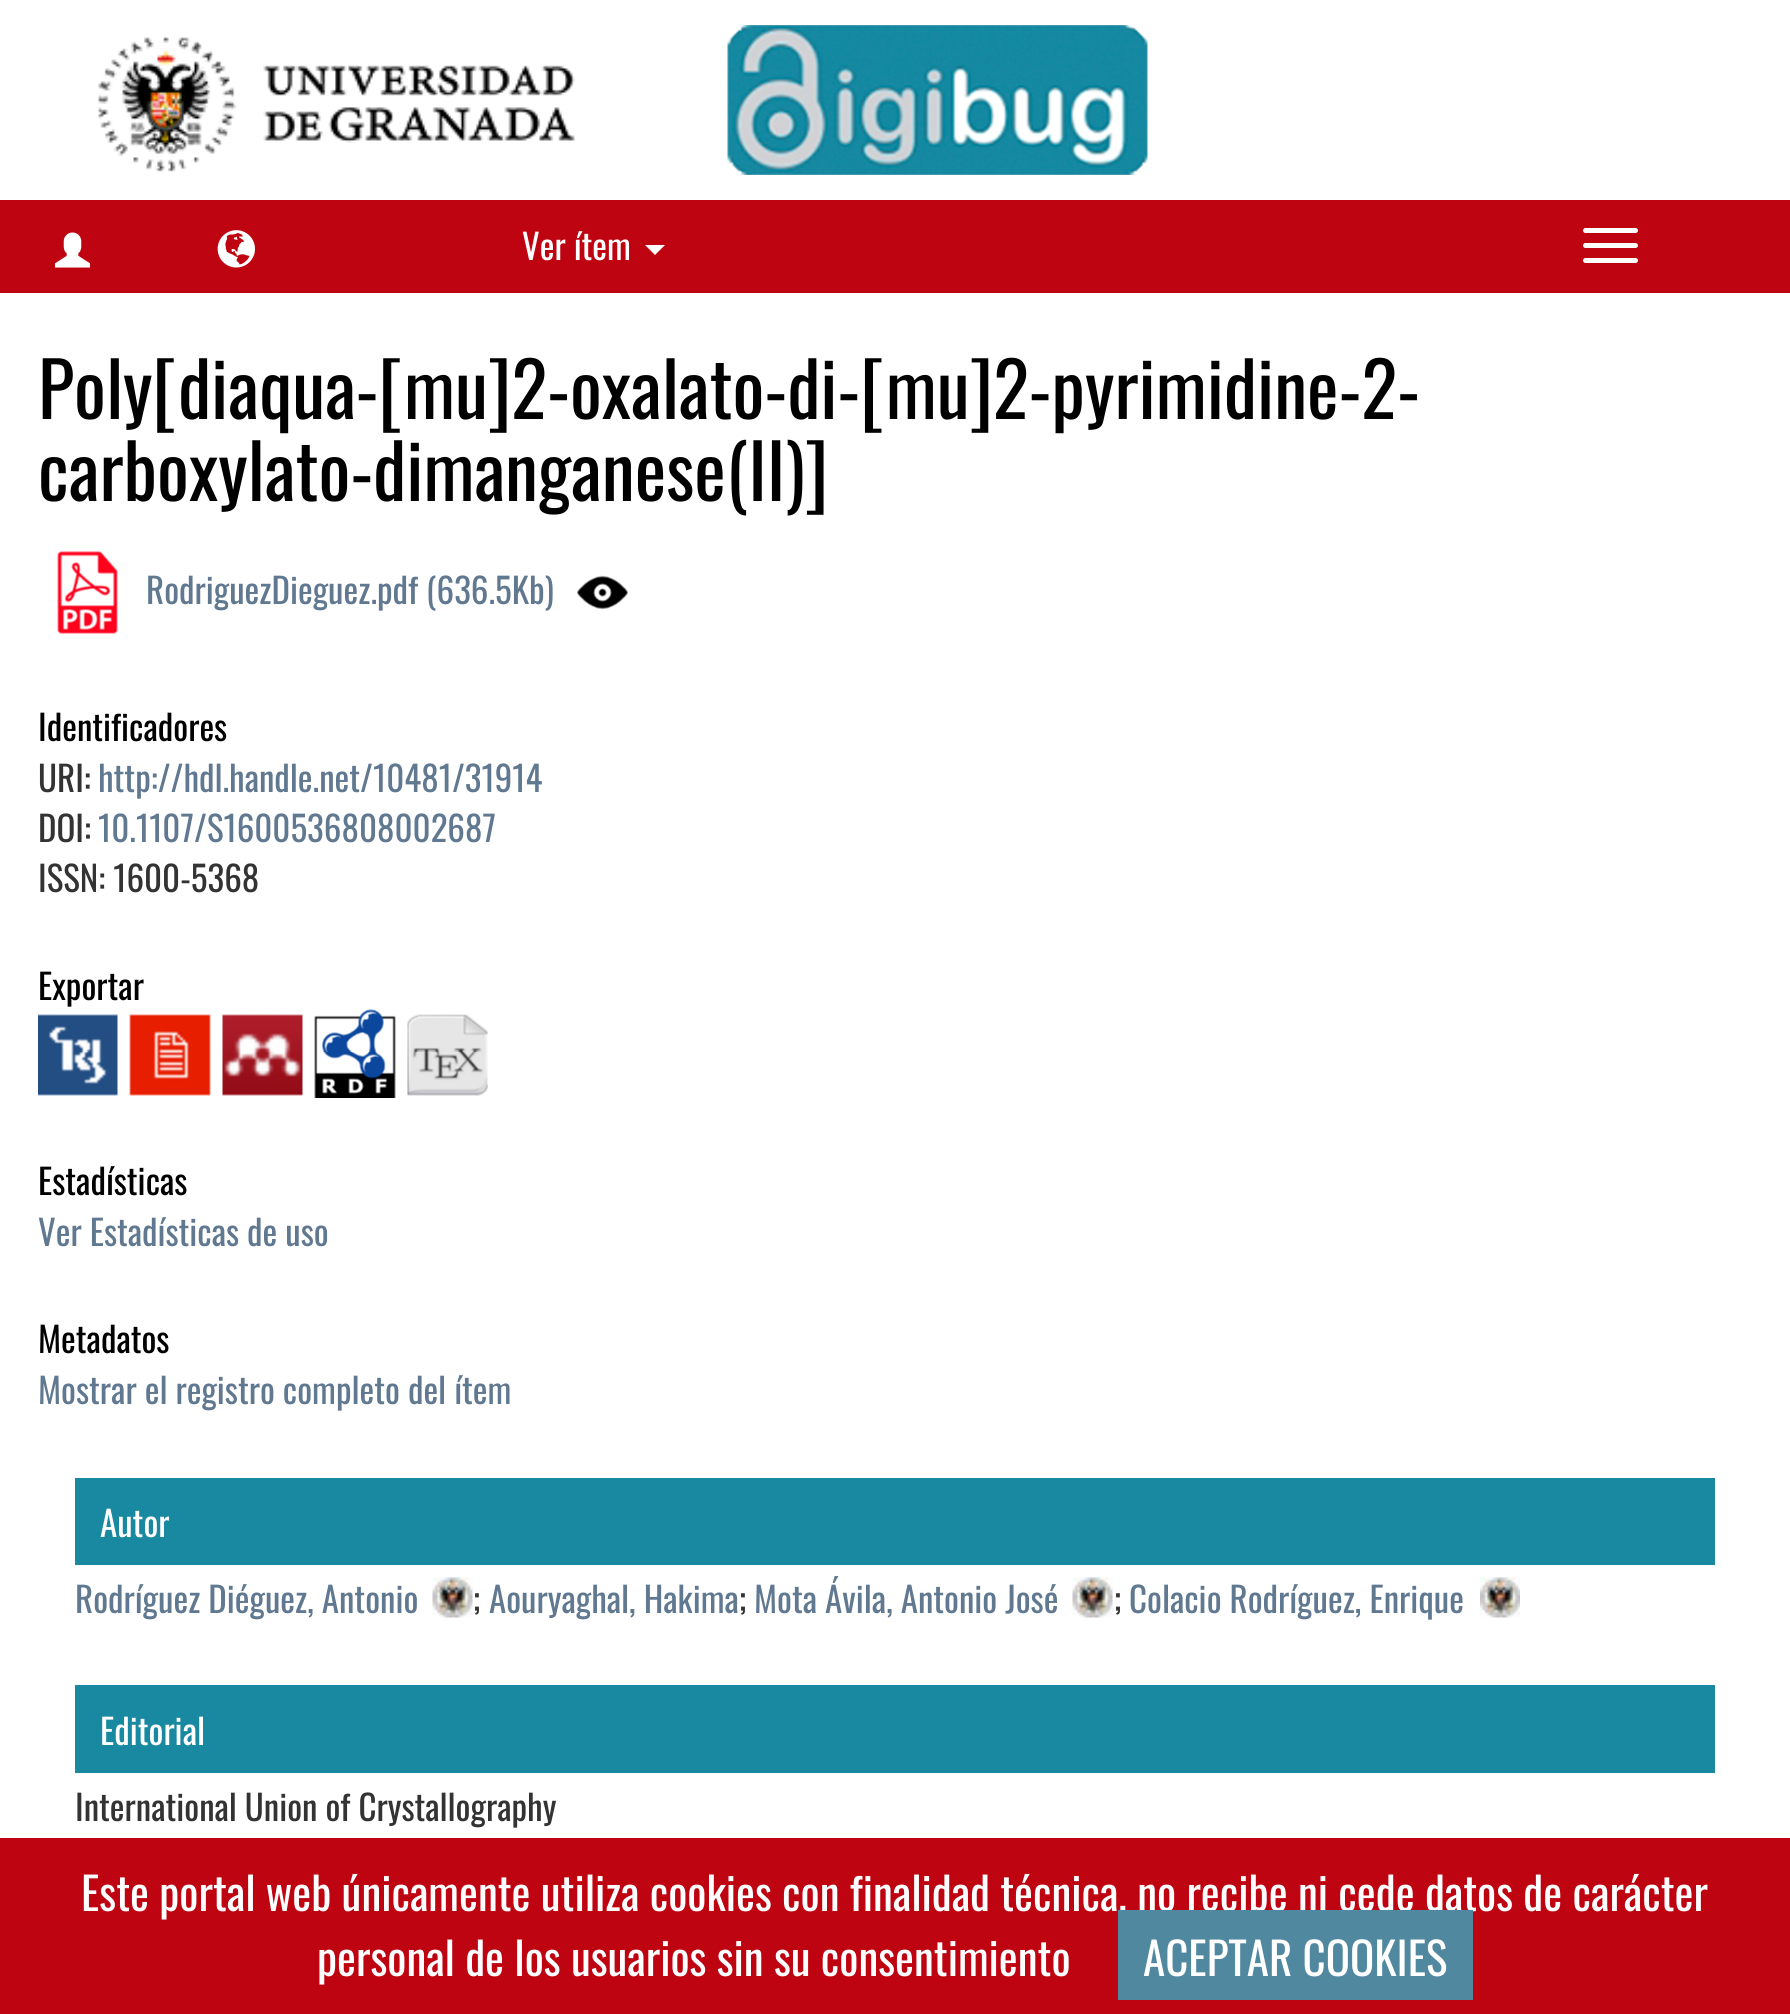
import math
import cairo

surface = cairo.ImageSurface(cairo.Format.RGB24, 1790, 2014)
ctx = cairo.Context(surface)
options = cairo.FontOptions()
options.set_hint_metrics(cairo.HintMetrics.OFF)
options.set_hint_style(cairo.HintStyle.NONE)
ctx.set_font_options(options)
ctx.set_miter_limit(4)


def ink(r, g, b):
    ctx.set_source_rgb(r / 255, g / 255, b / 255)


def write(x, y, s, family, size, color, bold=False, italic=False):
    ctx.select_font_face(family, cairo.FontSlant.ITALIC if italic else cairo.FontSlant.NORMAL, cairo.FontWeight.BOLD if bold else cairo.FontWeight.NORMAL)
    ctx.set_font_size(size)
    ink(*color)
    ctx.move_to(x, y)
    ctx.show_text(s)


def block(x, y, w, h, *color):
    ink(*color)
    ctx.rectangle(x, y, w, h)
    ctx.fill()


def round_path(x, y, w, h, r):
    ctx.new_sub_path()
    for i, (u, v) in enumerate([(x + w - r, y + h - r), (x + r, y + h - r), (x + r, y + r), (x + w - r, y + r)]):
        ctx.arc(u, v, r, i * math.pi / 2, (i + 1) * math.pi / 2)
    ctx.close_path()


def paste(path, x, y, w, h):
    ctx.save()
    ctx.set_source_surface(cairo.ImageSurface.create_from_png(path), x, y)
    ctx.rectangle(x, y, w, h)
    ctx.fill()
    ctx.restore()


s1 = dict(family="Oswald", size=35, color=(255, 255, 255))
s2 = dict(family="Oswald", size=75, color=(0, 0, 0))
s3 = dict(family="Oswald", size=35, color=(96, 120, 144))
s4 = dict(family="Oswald", size=35, color=(0, 0, 0))
s5 = dict(family="Oswald", size=35, color=(51, 51, 51))
s6 = dict(family="Oswald", size=45, color=(255, 255, 255))

ink(255, 255, 255)
ctx.paint()
paste("pic1.png", 98, 37, 477, 135)
paste("pic2.png", 727, 25, 421, 150)
block(0, 200, 1790, 93, 191, 4, 17)
paste("pic3.png", 55, 232, 35, 36)
paste("pic4.png", 217, 230, 38, 38)
write(522, 260, "Ver ítem", **s1)
ctx.new_path()
ctx.move_to(645, 245)
ctx.line_to(665, 245)
ctx.line_to(655, 255)
ctx.close_path()
ctx.fill()
round_path(1583, 228, 55, 5, 2.5)
ctx.fill()
round_path(1583, 243, 55, 5, 2.5)
ctx.fill()
round_path(1583, 258, 55, 5, 2.5)
ctx.fill()
write(38, 419, "Poly[diaqua-[mu]2-oxalato-di-[mu]2-pyrimidine-2-", **s2)
write(38, 501, "carboxylato-dimanganese(II)]", **s2)
paste("pic5.png", 57, 551, 61, 83)
write(146, 604, "RodriguezDieguez.pdf (636.5Kb)", **s3)
paste("pic6.png", 577, 575, 51, 35)
write(38, 741, "Identificadores", **s4)
write(38, 792, "URI:", **s5)
write(98, 792, "http://hdl.handle.net/10481/31914", **s3)
write(38, 842, "DOI:", **s5)
write(98, 842, "10.1107/S1600536808002687", **s3)
write(38, 892, "ISSN: 1600-5368", **s5)
write(38, 1000, "Exportar", **s4)
paste("pic7.png", 38, 1014, 80, 82)
paste("pic8.png", 129, 1014, 82, 82)
paste("pic9.png", 222, 1014, 81, 82)
paste("pic10.png", 314, 1009, 82, 89)
paste("pic11.png", 407, 1014, 81, 82)
write(38, 1195, "Estadísticas", **s4)
write(38, 1246, "Ver Estadísticas de uso", **s3)
write(38, 1353, "Metadatos", **s4)
write(38, 1404, "Mostrar el registro completo del ítem", **s3)
block(75, 1478, 1640, 87, 24, 137, 161)
write(100, 1537, "Autor", **s1)
write(75, 1613, "Rodríguez Diéguez, Antonio", **s3)
paste("pic12.png", 432, 1577, 41, 41)
write(473, 1613, ";", **s5)
write(489, 1613, "Aouryaghal, Hakima", **s3)
write(739, 1613, ";", **s5)
write(754, 1613, "Mota Ávila, Antonio José", **s3)
paste("pic13.png", 1072, 1577, 41, 41)
write(1114, 1613, ";", **s5)
write(1129, 1613, "Colacio Rodríguez, Enrique", **s3)
paste("pic14.png", 1480, 1577, 40, 41)
block(75, 1685, 1640, 88, 24, 137, 161)
write(100, 1745, "Editorial", **s1)
write(75, 1821, "International Union of Crystallography", **s5)
block(0, 1838, 1790, 176, 191, 4, 17)
write(81, 1911, "Este portal web únicamente utiliza cookies con finalidad técnica, no recibe ni cede datos de carácter", **s6)
write(317, 1976, "personal de los usuarios sin su consentimiento", **s6)
block(1118, 1910, 355, 90, 80, 136, 160)
write(1143, 1976, "ACEPTAR COOKIES", **s6)
surface.write_to_png("screenshot.png")
